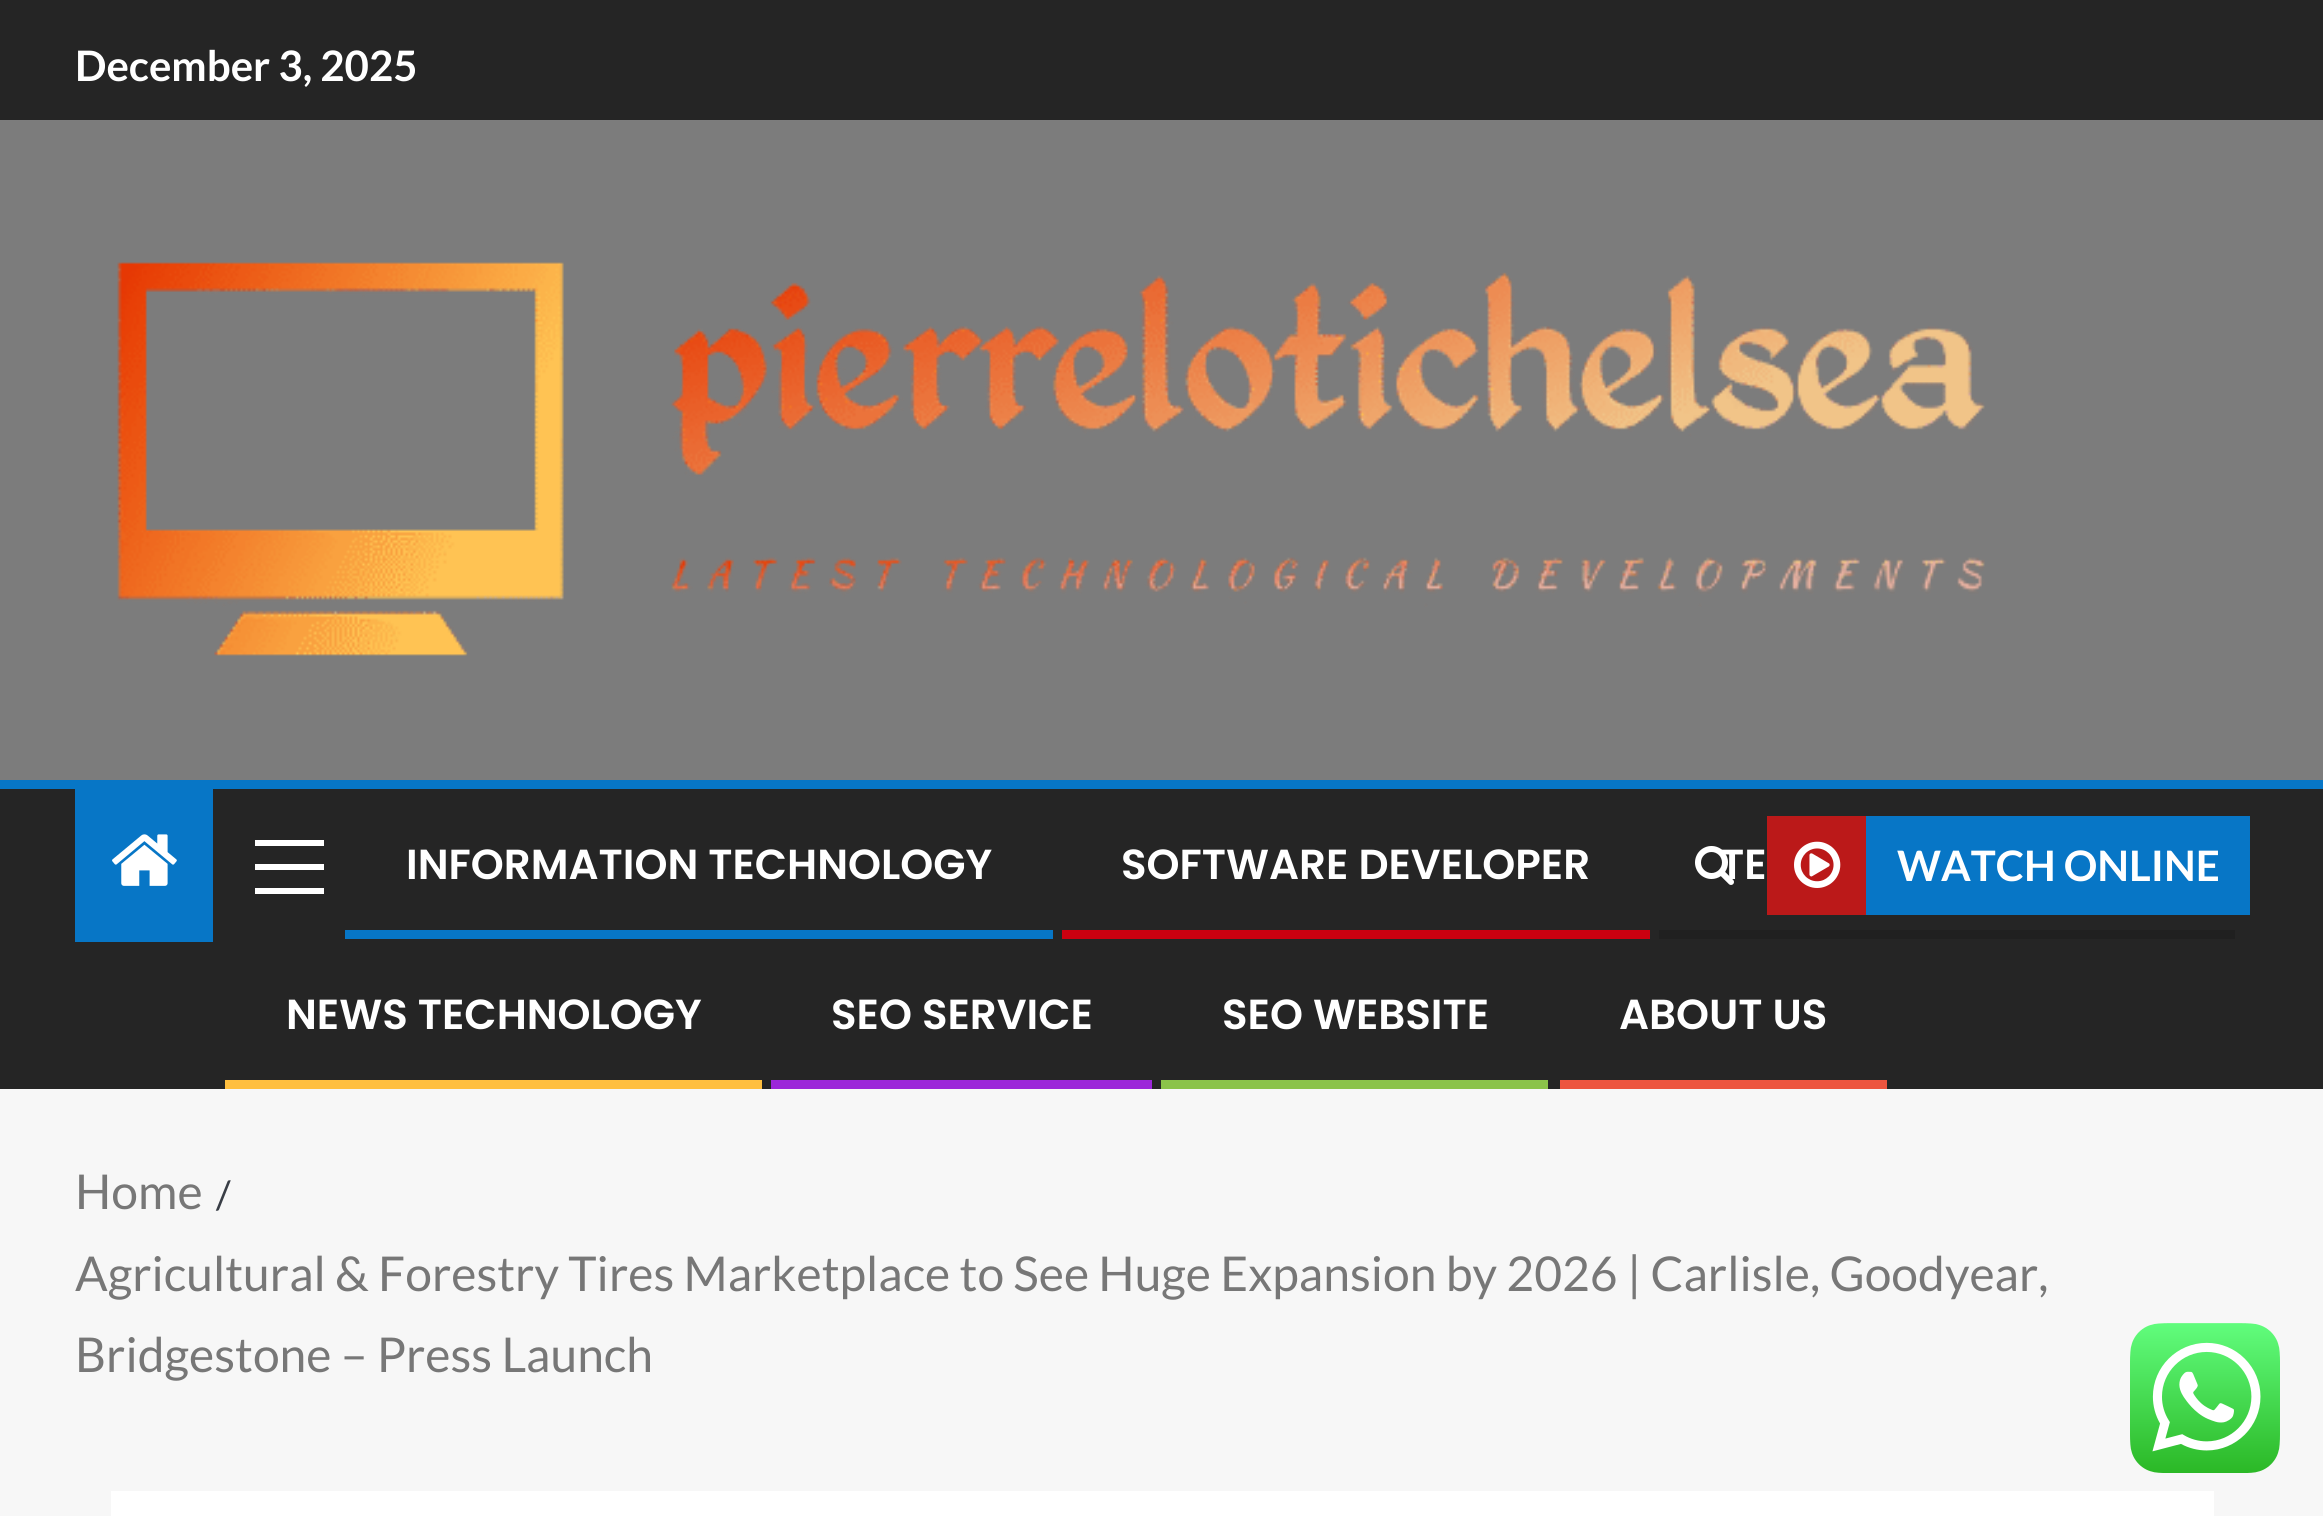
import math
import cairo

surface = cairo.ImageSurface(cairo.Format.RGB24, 2323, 1516)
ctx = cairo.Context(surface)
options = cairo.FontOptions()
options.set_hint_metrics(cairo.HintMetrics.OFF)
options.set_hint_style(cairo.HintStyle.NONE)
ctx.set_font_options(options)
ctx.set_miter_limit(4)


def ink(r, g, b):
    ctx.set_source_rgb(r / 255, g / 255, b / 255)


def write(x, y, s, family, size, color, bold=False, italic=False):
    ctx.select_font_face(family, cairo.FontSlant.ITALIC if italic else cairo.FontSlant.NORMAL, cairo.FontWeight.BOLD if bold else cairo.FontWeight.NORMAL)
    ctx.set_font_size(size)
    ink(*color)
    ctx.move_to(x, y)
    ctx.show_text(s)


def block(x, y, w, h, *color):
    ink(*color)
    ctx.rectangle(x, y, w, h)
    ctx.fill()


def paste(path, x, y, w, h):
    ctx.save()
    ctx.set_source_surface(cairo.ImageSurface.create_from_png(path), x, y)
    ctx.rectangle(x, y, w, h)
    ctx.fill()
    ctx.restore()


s1 = dict(family="Lato", size=42, color=(255, 255, 255), bold=True)
s2 = dict(family="Poppins SemiBold", size=42, color=(255, 255, 255))
s3 = dict(family="Lato", size=48, color=(119, 119, 119))
s4 = dict(family="Lato", size=39, color=(57, 62, 70))

ink(247, 247, 247)
ctx.paint()
block(0, 0, 2323, 120, 37, 37, 37)
write(75, 81, "December 3, 2025", **s1)
block(0, 120, 2323, 660, 124, 124, 124)
paste("pic1.png", 117, 262, 1868, 394)
block(0, 789, 2323, 300, 37, 37, 37)
block(0, 780, 2323, 9, 7, 118, 198)
block(75, 789, 138, 153, 7, 118, 198)
paste("pic2.png", 112, 834, 65, 52)
block(255, 864, 69, 6, 255, 255, 255)
block(255, 840, 69, 6, 255, 255, 255)
block(255, 888, 69, 6, 255, 255, 255)
write(406, 879, "INFORMATION TECHNOLOGY", **s2)
block(345, 930, 708, 9, 7, 118, 198)
write(1121, 879, "SOFTWARE DEVELOPER", **s2)
block(1062, 930, 588, 9, 204, 0, 16)
write(1720, 879, "TE", **s2)
block(1659, 930, 576, 9, 32, 32, 32)
write(286, 1029, "NEWS TECHNOLOGY", **s2)
block(225, 1080, 537, 9, 255, 191, 63)
write(831, 1029, "SEO SERVICE", **s2)
block(771, 1080, 381, 9, 156, 39, 217)
write(1222, 1029, "SEO WEBSITE", **s2)
block(1161, 1080, 387, 9, 139, 195, 74)
write(1619, 1029, "ABOUT US", **s2)
block(1560, 1080, 327, 9, 237, 85, 63)
paste("pic3.png", 1695, 846, 39, 39)
block(1767, 816, 99, 99, 187, 25, 25)
paste("pic4.png", 1794, 841, 47, 47)
block(1866, 816, 384, 99, 7, 118, 198)
write(1897, 881, "WATCH ONLINE", **s1)
write(75, 1209, "Home", **s3)
write(216, 1209, "/", **s4)
write(75, 1291, "Agricultural & Forestry Tires Marketplace to See Huge Expansion by 2026 | Carlisle, Goodyear,", **s3)
write(75, 1372, "Bridgestone – Press Launch", **s3)
block(111, 1491, 2103, 25, 255, 255, 255)
paste("pic5.png", 2130, 1323, 150, 150)
surface.write_to_png("screenshot.png")
